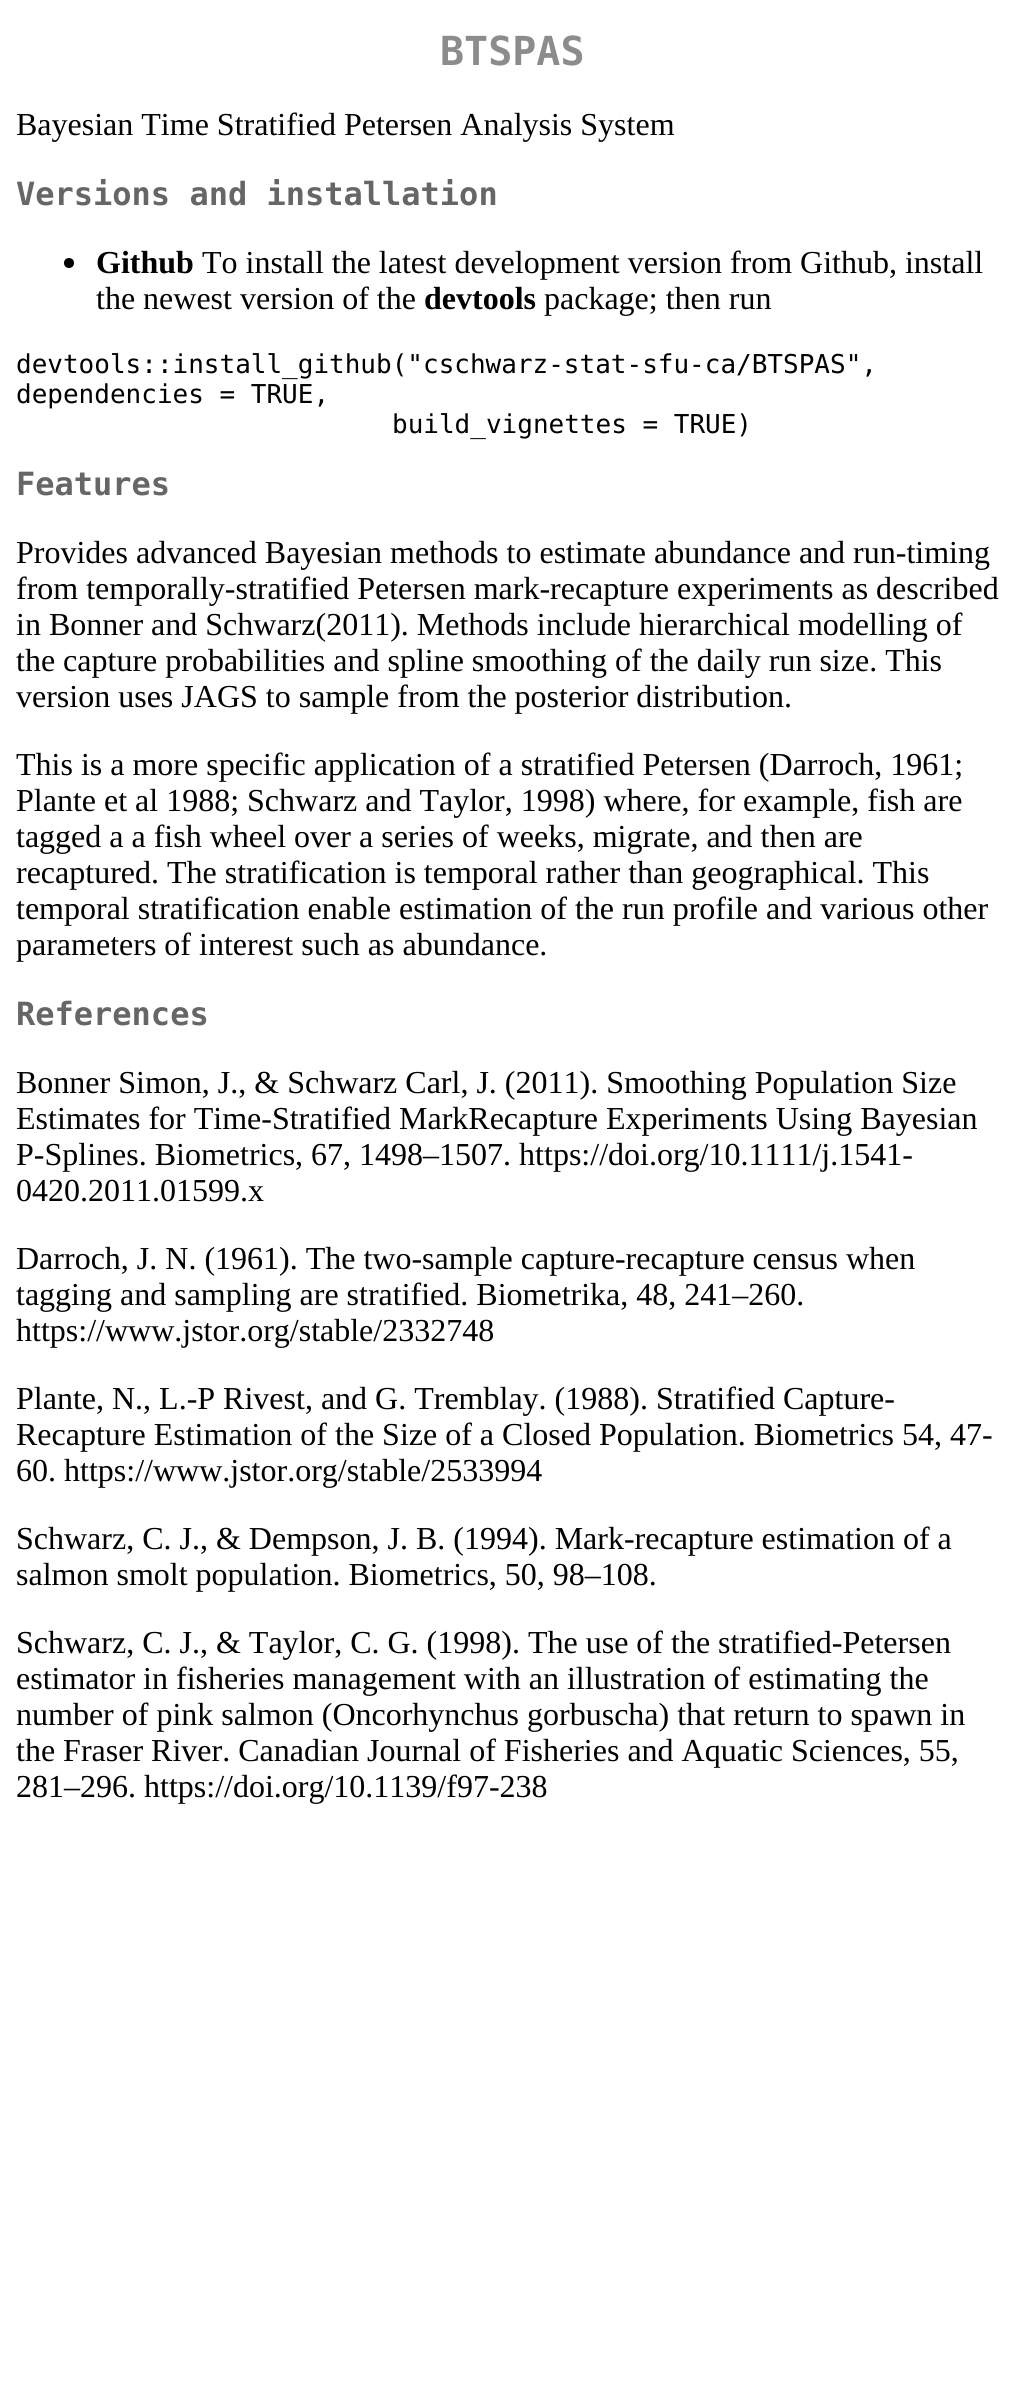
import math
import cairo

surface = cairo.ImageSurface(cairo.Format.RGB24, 1024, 2404)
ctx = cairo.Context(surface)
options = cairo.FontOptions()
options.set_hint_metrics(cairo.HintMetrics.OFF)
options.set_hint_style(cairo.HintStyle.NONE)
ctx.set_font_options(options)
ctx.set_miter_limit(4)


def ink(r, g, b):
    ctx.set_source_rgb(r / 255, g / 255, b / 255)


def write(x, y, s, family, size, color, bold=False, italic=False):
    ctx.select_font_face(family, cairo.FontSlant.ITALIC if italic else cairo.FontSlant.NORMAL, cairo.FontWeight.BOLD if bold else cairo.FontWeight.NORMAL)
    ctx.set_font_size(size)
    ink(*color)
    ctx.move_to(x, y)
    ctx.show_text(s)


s1 = dict(family="DejaVu Sans Mono", size=40, color=(140, 140, 140), bold=True)
s2 = dict(family="Liberation Serif", size=32, color=(0, 0, 0))
s3 = dict(family="DejaVu Sans Mono", size=32, color=(102, 102, 102), bold=True)
s4 = dict(family="Liberation Serif", size=32, color=(0, 0, 0), bold=True)
s5 = dict(family="DejaVu Sans Mono", size=26, color=(0, 0, 0))

ink(255, 255, 255)
ctx.paint()
write(440, 65, "BTSPAS", **s1)
write(16, 135, "Bayesian Time Stratified Petersen Analysis System", **s2)
write(16, 205, "Versions and installation", **s3)
ink(0, 0, 0)
ctx.new_path()
ctx.arc(69, 263, 5, 0, 2 * math.pi)
ctx.fill()
write(96, 273, "Github", **s4)
write(202, 273, "To install the latest development version from Github, install", **s2)
write(96, 309, "the newest version of the", **s2)
write(424, 309, "devtools", **s4)
write(544, 309, "package; then run", **s2)
write(16, 373, "devtools::install_github(\"cschwarz-stat-sfu-ca/BTSPAS\",", **s5)
write(16, 403, "dependencies = TRUE,", **s5)
write(392, 433, "build_vignettes = TRUE)", **s5)
write(16, 495, "Features", **s3)
write(16, 563, "Provides advanced Bayesian methods to estimate abundance and run-timing", **s2)
write(16, 599, "from temporally-stratified Petersen mark-recapture experiments as described", **s2)
write(16, 635, "in Bonner and Schwarz(2011). Methods include hierarchical modelling of", **s2)
write(16, 671, "the capture probabilities and spline smoothing of the daily run size. This", **s2)
write(16, 707, "version uses JAGS to sample from the posterior distribution.", **s2)
write(16, 775, "This is a more specific application of a stratified Petersen (Darroch, 1961;", **s2)
write(16, 811, "Plante et al 1988; Schwarz and Taylor, 1998) where, for example, fish are", **s2)
write(16, 847, "tagged a a fish wheel over a series of weeks, migrate, and then are", **s2)
write(16, 883, "recaptured. The stratification is temporal rather than geographical. This", **s2)
write(16, 919, "temporal stratification enable estimation of the run profile and various other", **s2)
write(16, 955, "parameters of interest such as abundance.", **s2)
write(16, 1025, "References", **s3)
write(16, 1093, "Bonner Simon, J., & Schwarz Carl, J. (2011). Smoothing Population Size", **s2)
write(16, 1129, "Estimates for Time-Stratified MarkRecapture Experiments Using Bayesian", **s2)
write(16, 1165, "P-Splines. Biometrics, 67, 1498–1507. https://doi.org/10.1111/j.1541-", **s2)
write(16, 1201, "0420.2011.01599.x", **s2)
write(16, 1269, "Darroch, J. N. (1961). The two-sample capture-recapture census when", **s2)
write(16, 1305, "tagging and sampling are stratified. Biometrika, 48, 241–260.", **s2)
write(16, 1341, "https://www.jstor.org/stable/2332748", **s2)
write(16, 1409, "Plante, N., L.-P Rivest, and G. Tremblay. (1988). Stratified Capture-", **s2)
write(16, 1445, "Recapture Estimation of the Size of a Closed Population. Biometrics 54, 47-", **s2)
write(16, 1481, "60. https://www.jstor.org/stable/2533994", **s2)
write(16, 1549, "Schwarz, C. J., & Dempson, J. B. (1994). Mark-recapture estimation of a", **s2)
write(16, 1585, "salmon smolt population. Biometrics, 50, 98–108.", **s2)
write(16, 1653, "Schwarz, C. J., & Taylor, C. G. (1998). The use of the stratified-Petersen", **s2)
write(16, 1689, "estimator in fisheries management with an illustration of estimating the", **s2)
write(16, 1725, "number of pink salmon (Oncorhynchus gorbuscha) that return to spawn in", **s2)
write(16, 1761, "the Fraser River. Canadian Journal of Fisheries and Aquatic Sciences, 55,", **s2)
write(16, 1797, "281–296. https://doi.org/10.1139/f97-238", **s2)
surface.write_to_png("screenshot.png")
